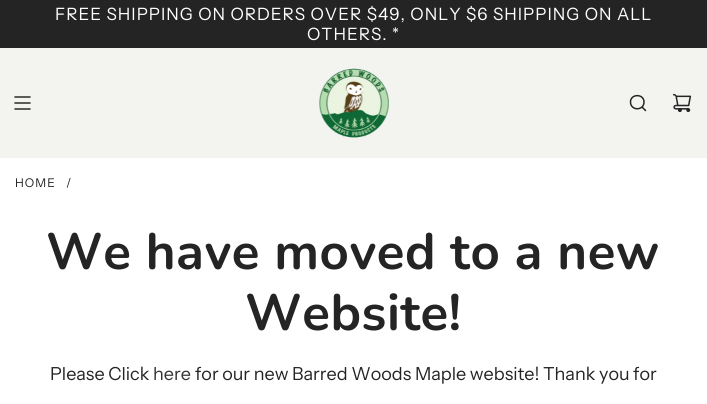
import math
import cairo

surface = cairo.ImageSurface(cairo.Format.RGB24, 707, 404)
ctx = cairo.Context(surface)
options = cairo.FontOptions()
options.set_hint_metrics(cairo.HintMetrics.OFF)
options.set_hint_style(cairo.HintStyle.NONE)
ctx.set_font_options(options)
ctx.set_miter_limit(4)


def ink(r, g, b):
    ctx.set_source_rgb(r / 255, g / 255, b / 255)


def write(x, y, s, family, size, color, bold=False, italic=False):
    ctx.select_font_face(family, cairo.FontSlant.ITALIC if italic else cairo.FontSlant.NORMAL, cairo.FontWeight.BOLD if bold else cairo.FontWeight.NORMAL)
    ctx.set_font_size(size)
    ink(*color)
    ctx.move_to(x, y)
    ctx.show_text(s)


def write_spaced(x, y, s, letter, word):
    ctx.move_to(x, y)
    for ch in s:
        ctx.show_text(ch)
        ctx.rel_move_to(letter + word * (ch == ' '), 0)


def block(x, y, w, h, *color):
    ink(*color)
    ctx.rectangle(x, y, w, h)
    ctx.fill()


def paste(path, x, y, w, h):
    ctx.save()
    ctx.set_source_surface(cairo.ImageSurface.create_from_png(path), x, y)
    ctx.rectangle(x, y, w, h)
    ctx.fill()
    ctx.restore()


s1 = dict(family="Instrument Sans", size=12, color=(36, 36, 36))
s2 = dict(family="Instrument Sans", size=18, color=(36, 36, 36))
s3 = dict(family="Instrument Sans", size=18, color=(51, 51, 51))

ink(255, 255, 255)
ctx.paint()
block(0, 0, 707, 48, 36, 36, 36)
ctx.select_font_face("Instrument Sans")
ctx.set_font_size(17)
ink(255, 255, 255)
write_spaced(55, 20, "FREE SHIPPING ON ORDERS OVER $49, ONLY $6 SHIPPING ON ALL", 1, 0)
write_spaced(307, 40, "OTHERS. *", 1, 0)
block(0, 48, 707, 110, 243, 243, 240)
ctx.new_path()
ctx.move_to(15, 97)
ctx.line_to(30, 97)
ctx.move_to(15, 103)
ctx.line_to(30, 103)
ctx.move_to(15, 109)
ctx.line_to(30, 109)
ink(36, 36, 36)
ctx.set_line_width(1.5)
ctx.set_line_cap(cairo.LineCap.ROUND)
ctx.set_line_join(cairo.LineJoin.ROUND)
ctx.stroke()
paste("pic1.png", 319, 68, 70, 70)
ctx.new_path()
ctx.move_to(642, 107)
ctx.line_to(645.5, 110.5)
ctx.move_to(630.5, 102)
ctx.curve_to(630.5, 111, 644, 111, 644, 102)
ctx.curve_to(644, 93.5, 630.5, 93.5, 630.5, 102)
ctx.close_path()
ctx.stroke()
paste("pic2.png", 672, 93, 20, 20)
ctx.set_font_size(12)
write_spaced(15, 187, "HOME", 1, 0)
write(66, 187, "/", **s1)
ctx.select_font_face("Nunito", cairo.FontSlant.NORMAL, cairo.FontWeight.BOLD)
ctx.set_font_size(51)
write_spaced(46, 269, "We have moved to a new", 0.5, 0)
write_spaced(245, 330, "Website!", 0.5, 0)
write(50, 380, "Please Click", **s2)
write(153, 380, "here", **s3)
write(195, 380, "for our new Barred Woods Maple website! Thank you for", **s2)
surface.write_to_png("screenshot.png")
